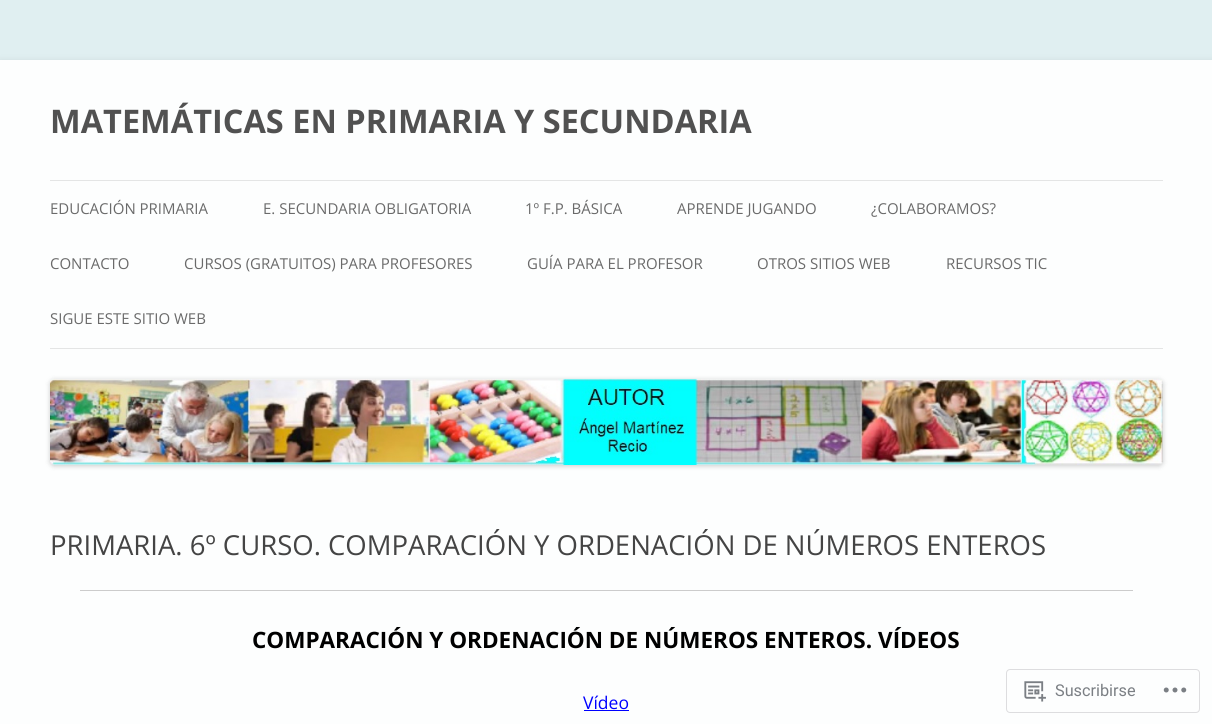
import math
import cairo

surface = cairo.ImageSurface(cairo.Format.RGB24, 1212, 724)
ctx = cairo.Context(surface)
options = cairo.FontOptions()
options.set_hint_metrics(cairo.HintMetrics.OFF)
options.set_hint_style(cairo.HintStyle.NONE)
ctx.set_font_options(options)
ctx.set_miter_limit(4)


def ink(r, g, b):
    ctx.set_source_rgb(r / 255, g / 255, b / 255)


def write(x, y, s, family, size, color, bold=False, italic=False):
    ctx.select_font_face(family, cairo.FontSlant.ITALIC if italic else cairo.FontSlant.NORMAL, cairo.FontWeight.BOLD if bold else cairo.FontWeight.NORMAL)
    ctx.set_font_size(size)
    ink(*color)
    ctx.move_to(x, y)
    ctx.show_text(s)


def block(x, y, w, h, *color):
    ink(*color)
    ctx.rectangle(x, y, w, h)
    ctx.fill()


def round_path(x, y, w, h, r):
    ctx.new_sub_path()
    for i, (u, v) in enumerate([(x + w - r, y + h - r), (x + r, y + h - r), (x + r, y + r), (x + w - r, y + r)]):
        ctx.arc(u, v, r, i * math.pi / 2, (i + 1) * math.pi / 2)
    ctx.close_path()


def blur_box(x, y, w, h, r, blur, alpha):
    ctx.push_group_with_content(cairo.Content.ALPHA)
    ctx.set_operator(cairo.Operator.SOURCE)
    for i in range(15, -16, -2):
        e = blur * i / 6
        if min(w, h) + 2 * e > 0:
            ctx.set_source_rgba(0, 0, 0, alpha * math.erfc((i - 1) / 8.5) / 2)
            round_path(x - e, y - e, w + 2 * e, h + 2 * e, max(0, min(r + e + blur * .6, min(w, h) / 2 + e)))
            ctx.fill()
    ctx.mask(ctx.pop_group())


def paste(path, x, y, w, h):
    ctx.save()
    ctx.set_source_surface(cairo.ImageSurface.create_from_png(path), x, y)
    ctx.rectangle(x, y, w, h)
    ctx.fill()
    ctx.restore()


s1 = dict(family="Open Sans", size=32.5, color=(81, 81, 81), bold=True)
s2 = dict(family="Open Sans", size=15, color=(106, 106, 106))
s3 = dict(family="Open Sans", size=27.5, color=(68, 68, 68))
s4 = dict(family="Open Sans", size=22.5, color=(0, 0, 0), bold=True)
s5 = dict(family="Open Sans", size=17.5, color=(0, 0, 255))
s6 = dict(family="Roboto", size=16.25, color=(123, 127, 132))

ink(224, 239, 241)
ctx.paint()
ink(100, 100, 100)
blur_box(0, 63, 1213, 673, 0, 4, 0.3)
block(0, 60, 1212, 664, 253, 254, 254)
write(50, 133, "MATEMÁTICAS EN PRIMARIA Y SECUNDARIA", **s1)
block(50, 180, 1113, 1, 228, 229, 229)
block(50, 348, 1113, 1, 228, 229, 229)
write(50, 214, "EDUCACIÓN PRIMARIA", **s2)
write(263, 214, "E. SECUNDARIA OBLIGATORIA", **s2)
write(525, 214, "1º F.P. BÁSICA", **s2)
write(677, 214, "APRENDE JUGANDO", **s2)
write(871, 214, "¿COLABORAMOS?", **s2)
write(50, 269, "CONTACTO", **s2)
write(184, 269, "CURSOS (GRATUITOS) PARA PROFESORES", **s2)
write(527, 269, "GUÍA PARA EL PROFESOR", **s2)
write(757, 269, "OTROS SITIOS WEB", **s2)
write(946, 269, "RECURSOS TIC", **s2)
write(50, 324, "SIGUE ESTE SITIO WEB", **s2)
ink(0, 0, 0)
blur_box(50, 380, 1113, 86, 4, 2.5, 0.2)
paste("pic1.png", 50, 378, 1113, 87)
write(50, 555, "PRIMARIA. 6º CURSO. COMPARACIÓN Y ORDENACIÓN DE NÚMEROS ENTEROS", **s3)
block(80, 590, 1053, 1, 204, 204, 204)
write(252, 648, "COMPARACIÓN Y ORDENACIÓN DE NÚMEROS ENTEROS. VÍDEOS", **s4)
write(583, 709, "Vídeo", **s5)
block(584, 710, 45, 1, 0, 0, 255)
round_path(1006.5, 669.5, 193, 43, 3.5)
ink(221, 221, 223)
ctx.set_line_width(1)
ctx.stroke()
paste("pic2.png", 1024, 681, 22, 21)
write(1055, 696, "Suscribirse", **s6)
paste("pic3.png", 1163, 687, 24, 6)
surface.write_to_png("screenshot.png")
